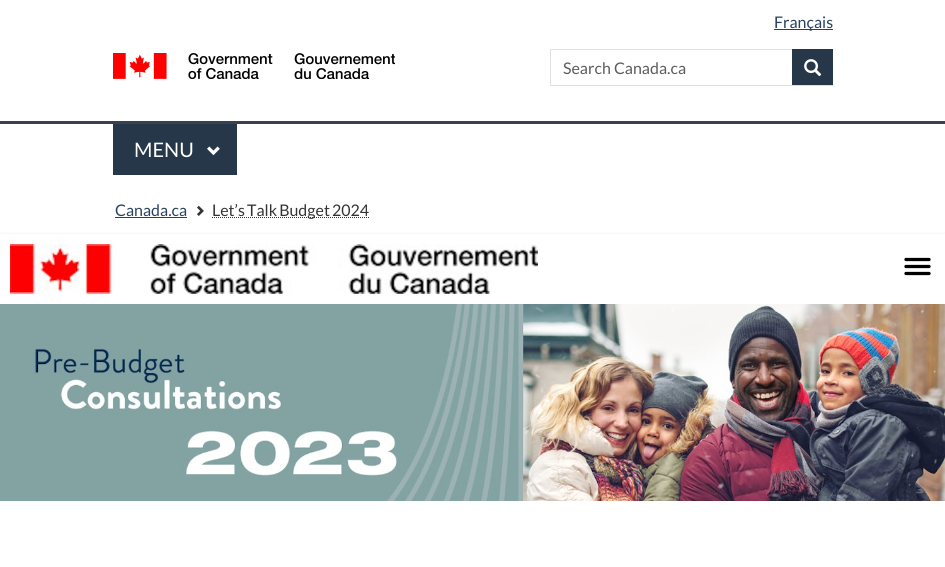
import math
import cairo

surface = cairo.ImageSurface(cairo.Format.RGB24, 945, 567)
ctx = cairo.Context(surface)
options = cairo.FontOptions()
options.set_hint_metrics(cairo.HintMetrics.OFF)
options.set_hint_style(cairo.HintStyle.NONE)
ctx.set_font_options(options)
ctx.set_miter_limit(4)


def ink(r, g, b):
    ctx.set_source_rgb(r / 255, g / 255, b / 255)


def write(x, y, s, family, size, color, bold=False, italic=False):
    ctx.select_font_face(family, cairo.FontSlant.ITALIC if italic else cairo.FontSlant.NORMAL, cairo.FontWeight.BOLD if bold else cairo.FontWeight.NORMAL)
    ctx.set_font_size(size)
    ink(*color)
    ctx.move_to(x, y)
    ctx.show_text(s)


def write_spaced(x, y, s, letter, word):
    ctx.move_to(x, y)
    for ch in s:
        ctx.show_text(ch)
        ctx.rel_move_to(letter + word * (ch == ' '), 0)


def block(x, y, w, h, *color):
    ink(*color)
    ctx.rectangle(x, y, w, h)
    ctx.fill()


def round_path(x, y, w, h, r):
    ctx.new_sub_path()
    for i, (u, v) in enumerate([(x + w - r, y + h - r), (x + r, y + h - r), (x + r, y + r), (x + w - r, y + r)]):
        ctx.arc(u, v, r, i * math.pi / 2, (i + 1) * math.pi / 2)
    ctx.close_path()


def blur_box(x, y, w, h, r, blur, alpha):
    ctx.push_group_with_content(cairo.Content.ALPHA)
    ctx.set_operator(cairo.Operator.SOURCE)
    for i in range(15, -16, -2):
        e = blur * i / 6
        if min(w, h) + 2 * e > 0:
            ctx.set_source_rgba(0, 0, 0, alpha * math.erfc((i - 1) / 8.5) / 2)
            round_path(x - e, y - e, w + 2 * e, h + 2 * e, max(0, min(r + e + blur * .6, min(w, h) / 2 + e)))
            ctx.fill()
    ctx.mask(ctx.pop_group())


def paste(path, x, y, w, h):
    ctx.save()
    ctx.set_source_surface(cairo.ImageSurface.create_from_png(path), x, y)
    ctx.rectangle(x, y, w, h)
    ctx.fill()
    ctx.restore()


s1 = dict(family="Lato", size=16, color=(40, 65, 98))
s2 = dict(family="Lato", size=16, color=(92, 92, 92))
s3 = dict(family="Lato", size=20, color=(255, 255, 255))

ink(255, 255, 255)
ctx.paint()
block(774, 29, 59, 1, 40, 65, 98)
write(774, 28, "Français", **s1)
paste("pic1.png", 113, 53, 282, 26)
ctx.rectangle(550.5, 49.5, 282, 36)
ink(224, 224, 224)
ctx.set_line_width(1)
ctx.stroke()
write(563, 74, "Search Canada.ca", **s2)
block(792, 49, 41, 36, 38, 55, 74)
paste("pic2.png", 804, 59, 18, 18)
block(0, 121, 945, 3, 56, 65, 77)
block(113, 124, 124, 51, 38, 55, 74)
write(134, 157, "MENU", **s3)
paste("pic3.png", 207, 146, 13, 10)
write(115, 216, "Canada.ca", **s1)
block(115, 217, 72, 1, 40, 65, 98)
paste("pic4.png", 197, 205, 7, 11)
ctx.new_path()
ctx.move_to(212, 217.5)
ctx.line_to(370, 217.5)
ink(51, 51, 51)
ctx.set_dash([1, 1])
ctx.stroke()
write_spaced(212, 216, "Let’s Talk Budget 2024", 0, -1)
ctx.save()
ctx.rectangle(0, 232, 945, 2)
ctx.clip()
ink(104, 115, 125)
blur_box(0, 235, 945, 70, 0, 2, 0.2)
ctx.restore()
paste("pic5.png", 10, 244, 528, 50)
ctx.new_path()
ctx.move_to(906, 259.5)
ctx.line_to(929, 259.5)
ctx.move_to(906, 266.5)
ctx.line_to(929, 266.5)
ctx.move_to(906, 273.5)
ctx.line_to(929, 273.5)
ink(0, 0, 0)
ctx.set_line_width(3.3)
ctx.set_line_cap(cairo.LineCap.ROUND)
ctx.set_dash([])
ctx.stroke()
paste("pic6.png", 0, 304, 945, 197)
surface.write_to_png("screenshot.png")
